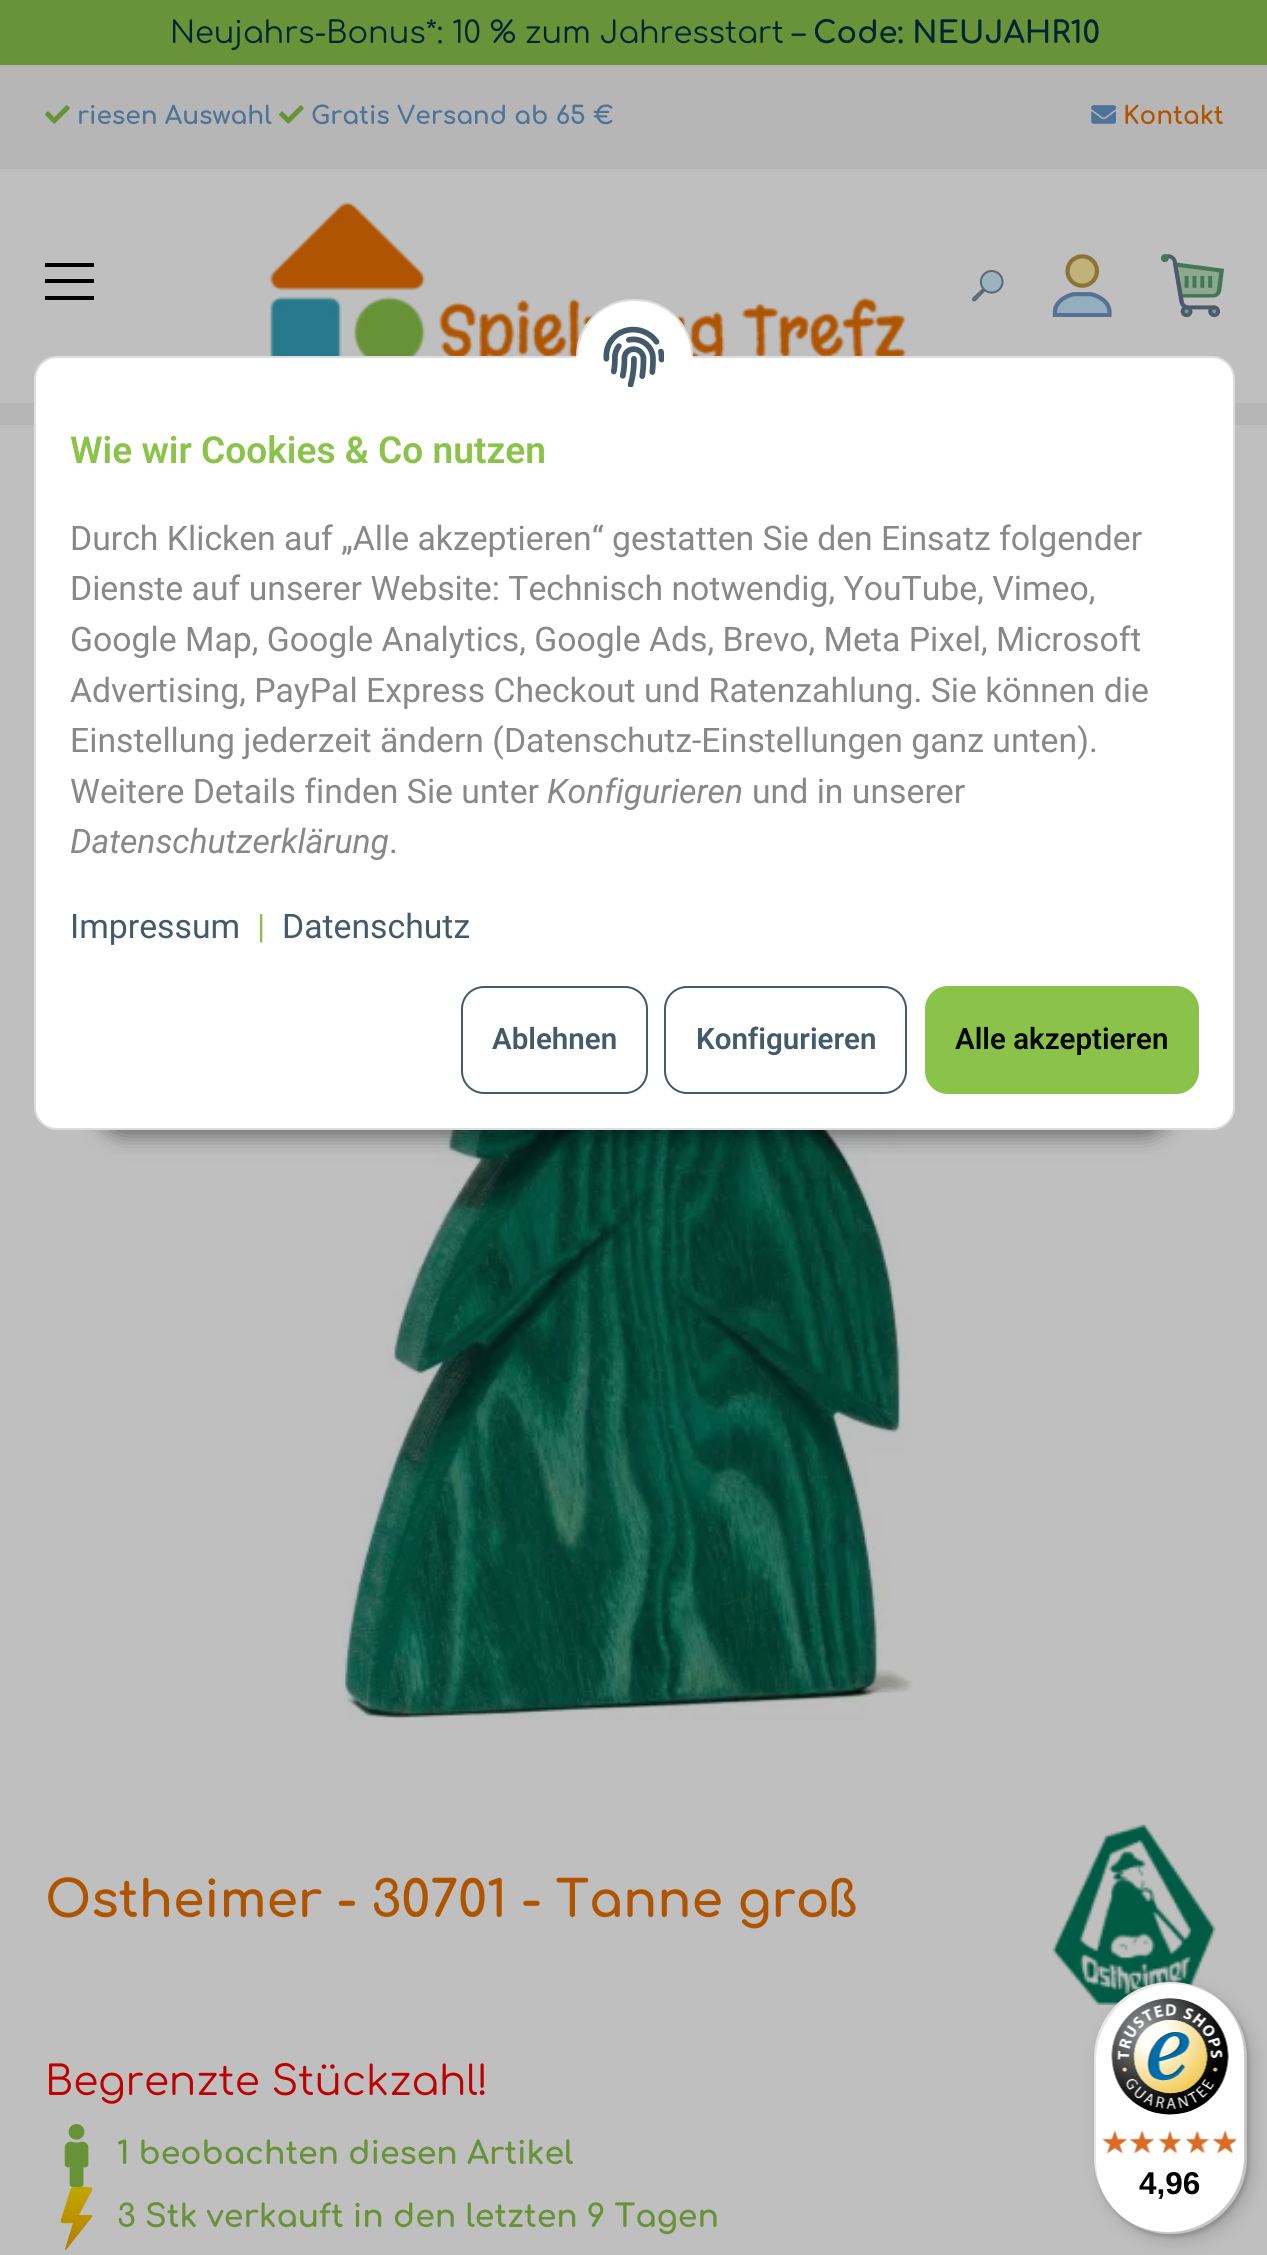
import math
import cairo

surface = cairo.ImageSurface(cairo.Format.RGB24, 1267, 2255)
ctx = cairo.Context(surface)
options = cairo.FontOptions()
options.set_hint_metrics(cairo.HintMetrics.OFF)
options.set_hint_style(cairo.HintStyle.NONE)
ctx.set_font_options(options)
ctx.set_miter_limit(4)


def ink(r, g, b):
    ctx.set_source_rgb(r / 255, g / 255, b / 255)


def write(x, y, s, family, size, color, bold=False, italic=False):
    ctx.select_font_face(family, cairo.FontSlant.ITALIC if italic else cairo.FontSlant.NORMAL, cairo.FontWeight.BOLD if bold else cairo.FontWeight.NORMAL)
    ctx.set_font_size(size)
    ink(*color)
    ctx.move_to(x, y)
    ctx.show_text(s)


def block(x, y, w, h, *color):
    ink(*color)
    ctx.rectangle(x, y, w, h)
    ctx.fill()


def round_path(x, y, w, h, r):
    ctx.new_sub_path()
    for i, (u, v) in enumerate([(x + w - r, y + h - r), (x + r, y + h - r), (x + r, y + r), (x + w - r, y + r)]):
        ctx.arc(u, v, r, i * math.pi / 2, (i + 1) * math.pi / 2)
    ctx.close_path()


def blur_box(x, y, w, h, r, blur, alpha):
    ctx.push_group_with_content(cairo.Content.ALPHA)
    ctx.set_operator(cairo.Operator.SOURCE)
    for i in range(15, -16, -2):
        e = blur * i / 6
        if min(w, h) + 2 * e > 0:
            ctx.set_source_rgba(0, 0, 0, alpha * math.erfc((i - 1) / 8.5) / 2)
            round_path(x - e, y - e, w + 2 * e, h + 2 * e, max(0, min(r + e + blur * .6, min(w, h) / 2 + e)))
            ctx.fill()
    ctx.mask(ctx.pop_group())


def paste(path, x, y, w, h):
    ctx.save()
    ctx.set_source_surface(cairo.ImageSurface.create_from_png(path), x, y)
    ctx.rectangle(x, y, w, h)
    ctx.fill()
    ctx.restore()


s1 = dict(family="Comfortaa", size=30.4, color=(2, 36, 53))
s2 = dict(family="Comfortaa", size=30.4, color=(2, 36, 53), bold=True)
s3 = dict(family="Comfortaa", size=24.75, color=(77, 115, 153), bold=True)
s4 = dict(family="Comfortaa", size=24.75, color=(175, 85, 2), bold=True)
s5 = dict(family="Comfortaa", size=50.25, color=(175, 85, 2), bold=True)
s6 = dict(family="Comfortaa", size=40.5, color=(191, 0, 0))
s7 = dict(family="Comfortaa", size=31.5, color=(104, 146, 56), bold=True)
s8 = dict(family="Roboto SemiBold", size=37.1, color=(139, 195, 74))
s9 = dict(family="Roboto", size=33.75, color=(136, 136, 136))
s10 = dict(family="Roboto", size=33.75, color=(136, 136, 136), italic=True)
s11 = dict(family="Roboto", size=33.75, color=(67, 90, 107))
s12 = dict(family="Roboto", size=33.75, color=(139, 195, 74))
s13 = dict(family="Roboto SemiBold", size=29.5, color=(67, 90, 107))
s14 = dict(family="Roboto SemiBold", size=29.5, color=(6, 7, 6))
s15 = dict(family="Liberation Sans", size=31.5, color=(0, 0, 0), bold=True)

ink(191, 191, 191)
ctx.paint()
block(0, 0, 1267, 65, 104, 147, 56)
write(170, 43, "Neujahrs-Bonus*: 10 % zum Jahresstart –", **s1)
write(813, 43, "Code: NEUJAHR10", **s2)
block(0, 65, 1267, 104, 182, 182, 182)
paste("pic1.png", 45, 105, 25, 19)
write(77, 124, "riesen Auswahl", **s3)
paste("pic1.png", 279, 105, 25, 19)
write(311, 124, "Gratis Versand ab 65 €", **s3)
paste("pic2.png", 1091, 105, 25, 19)
write(1123, 124, "Kontakt", **s4)
ink(0, 0, 0)
ctx.new_path()
ctx.move_to(45, 263)
ctx.line_to(45, 267)
ctx.line_to(94, 267)
ctx.line_to(94, 263)
ctx.close_path()
ctx.move_to(45, 279)
ctx.line_to(45, 283)
ctx.line_to(94, 283)
ctx.line_to(94, 279)
ctx.close_path()
ctx.move_to(45, 296)
ctx.line_to(45, 300)
ctx.line_to(94, 300)
ctx.line_to(94, 296)
ctx.close_path()
ctx.fill()
paste("pic3.png", 269, 202, 638, 154)
paste("pic4.png", 972, 270, 32, 32)
paste("pic5.png", 1052, 254, 60, 63)
paste("pic6.png", 1161, 254, 63, 63)
block(0, 403, 1267, 22, 182, 182, 182)
paste("pic7.png", 342, 1130, 571, 590)
write(45, 1917, "Ostheimer - 30701 - Tanne groß", **s5)
paste("pic8.png", 1052, 1824, 164, 181)
write(45, 2095, "Begrenzte Stückzahl!", **s6)
paste("pic9.png", 64, 2124, 25, 63)
write(117, 2164, "1 beobachten diesen Artikel", **s7)
gradient = cairo.LinearGradient(76, 2190, 76, 2242)
gradient.add_color_stop_rgba(0, 0.749, 0.655, 0, 1)
gradient.add_color_stop_rgba(1, 0.722, 0.502, 0, 1)
ctx.set_source(gradient)
ctx.new_path()
ctx.move_to(91, 2215)
ctx.line_to(79, 2215)
ctx.line_to(88, 2198)
ctx.curve_to(93, 2188, 96, 2187, 85, 2187)
ctx.line_to(76, 2187)
ctx.curve_to(70, 2187, 71, 2188, 69, 2194)
ctx.line_to(64, 2210)
ctx.curve_to(59, 2226, 58, 2223, 73, 2223)
ctx.line_to(65, 2249)
ctx.curve_to(65, 2250, 66, 2250, 66, 2250)
ctx.line_to(92, 2217)
ctx.curve_to(93, 2216, 92, 2215, 91, 2215)
ctx.close_path()
ctx.fill()
write(117, 2227, "3 Stk verkauft in den letzten 9 Tagen", **s7)
ink(0, 0, 0)
blur_box(97, 1069, 1075, 67, 33.5, 10.5, 0.45)
ink(255, 255, 255)
round_path(35, 357, 1199, 772, 22)
ctx.fill_preserve()
ink(221, 221, 221)
ctx.stroke()
ink(255, 255, 255)
round_path(577, 300, 115, 113, 56.5)
ctx.fill_preserve()
ink(221, 221, 221)
ctx.stroke()
block(576, 356, 117, 58, 255, 255, 255)
paste("pic10.png", 603, 326, 61, 61)
write(70, 463, "Wie wir Cookies & Co nutzen", **s8)
write(70, 550, "Durch Klicken auf „Alle akzeptieren“ gestatten Sie den Einsatz folgender", **s9)
write(70, 600, "Dienste auf unserer Website: Technisch notwendig, YouTube, Vimeo,", **s9)
write(70, 651, "Google Map, Google Analytics, Google Ads, Brevo, Meta Pixel, Microsoft", **s9)
write(70, 702, "Advertising, PayPal Express Checkout und Ratenzahlung. Sie können die", **s9)
write(70, 752, "Einstellung jederzeit ändern (Datenschutz-Einstellungen ganz unten).", **s9)
write(70, 803, "Weitere Details finden Sie unter", **s9)
write(547, 803, "Konfigurieren", **s10)
write(752, 803, "und in unserer", **s9)
write(70, 853, "Datenschutzerklärung", **s10)
write(389, 853, ".", **s9)
write(70, 938, "Impressum", **s11)
write(257, 938, "|", **s12)
write(282, 938, "Datenschutz", **s11)
round_path(462, 987, 185, 106, 22)
ctx.stroke()
write(492, 1049, "Ablehnen", **s13)
round_path(665, 987, 241, 106, 22)
ctx.stroke()
write(696, 1049, "Konfigurieren", **s13)
ink(139, 195, 74)
round_path(925, 986, 274, 108, 23)
ctx.fill()
write(955, 1049, "Alle akzeptieren", **s14)
ink(0, 0, 0)
blur_box(1100, 1989, 153, 252, 76.5, 9, 0.15)
blur_box(1096, 1985, 153, 252, 76.5, 2, 0.15)
ink(255, 255, 255)
round_path(1094, 1982, 153, 252, 76.5)
ctx.fill()
ctx.set_source_rgba(0, 0, 0, 0.1)
ctx.new_path()
ctx.move_to(1172, 1984)
ctx.curve_to(1197, 1984, 1219, 1996, 1234, 2015)
ctx.curve_to(1220, 1995, 1197, 1982, 1170, 1982)
ctx.curve_to(1128, 1982, 1094, 2016, 1094, 2058)
ctx.line_to(1094, 2158)
ctx.curve_to(1094, 2177, 1101, 2195, 1113, 2208)
ctx.curve_to(1102, 2195, 1096, 2178, 1096, 2160)
ctx.line_to(1096, 2061)
ctx.curve_to(1096, 2019, 1130, 1984, 1172, 1984)
ctx.close_path()
ctx.fill()
ctx.set_source_rgba(0, 0, 0, 0.2)
ctx.new_path()
ctx.move_to(1124, 2218)
ctx.curve_to(1137, 2228, 1153, 2234, 1170, 2234)
ctx.curve_to(1213, 2234, 1247, 2200, 1247, 2158)
ctx.line_to(1247, 2058)
ctx.curve_to(1247, 2033, 1234, 2010, 1215, 1996)
ctx.curve_to(1233, 2010, 1244, 2032, 1244, 2056)
ctx.line_to(1244, 2156)
ctx.curve_to(1244, 2198, 1210, 2232, 1168, 2232)
ctx.curve_to(1152, 2232, 1136, 2227, 1124, 2218)
ctx.close_path()
ctx.fill()
ctx.set_source_rgba(0.196, 0.196, 0.196, 0.2)
ctx.new_path()
ctx.move_to(1135, 2225)
ctx.curve_to(1146, 2231, 1158, 2234, 1170, 2234)
ctx.curve_to(1213, 2234, 1247, 2200, 1247, 2158)
ctx.line_to(1247, 2058)
ctx.curve_to(1247, 2031, 1232, 2006, 1210, 1993)
ctx.curve_to(1231, 2006, 1245, 2030, 1245, 2057)
ctx.line_to(1245, 2156)
ctx.curve_to(1245, 2199, 1211, 2233, 1169, 2233)
ctx.curve_to(1157, 2233, 1145, 2230, 1135, 2225)
ctx.close_path()
ctx.fill()
ctx.set_source_rgba(1, 1, 1, 0.3)
ctx.new_path()
ctx.move_to(1130, 2222)
ctx.curve_to(1142, 2230, 1156, 2234, 1170, 2234)
ctx.curve_to(1213, 2234, 1247, 2200, 1247, 2158)
ctx.line_to(1247, 2058)
ctx.curve_to(1247, 2030, 1232, 2005, 1209, 1992)
ctx.curve_to(1230, 2006, 1245, 2030, 1245, 2058)
ctx.line_to(1245, 2157)
ctx.curve_to(1245, 2199, 1211, 2233, 1169, 2233)
ctx.curve_to(1155, 2233, 1142, 2229, 1130, 2222)
ctx.close_path()
ctx.fill()
paste("pic11.png", 1111, 1998, 118, 117)
paste("pic17.png", 1102, 2131, 25, 22)
paste("pic12.png", 1102, 2130, 26, 23)
paste("pic18.png", 1132, 2131, 22, 22)
paste("pic13.png", 1129, 2130, 26, 23)
paste("pic19.png", 1159, 2131, 22, 22)
paste("pic14.png", 1158, 2130, 24, 23)
paste("pic20.png", 1186, 2131, 25, 22)
paste("pic15.png", 1185, 2130, 24, 23)
paste("pic21.png", 1213, 2131, 25, 22)
paste("pic16.png", 1212, 2130, 24, 23)
write(1139, 2194, "4,96", **s15)
surface.write_to_png("screenshot.png")
